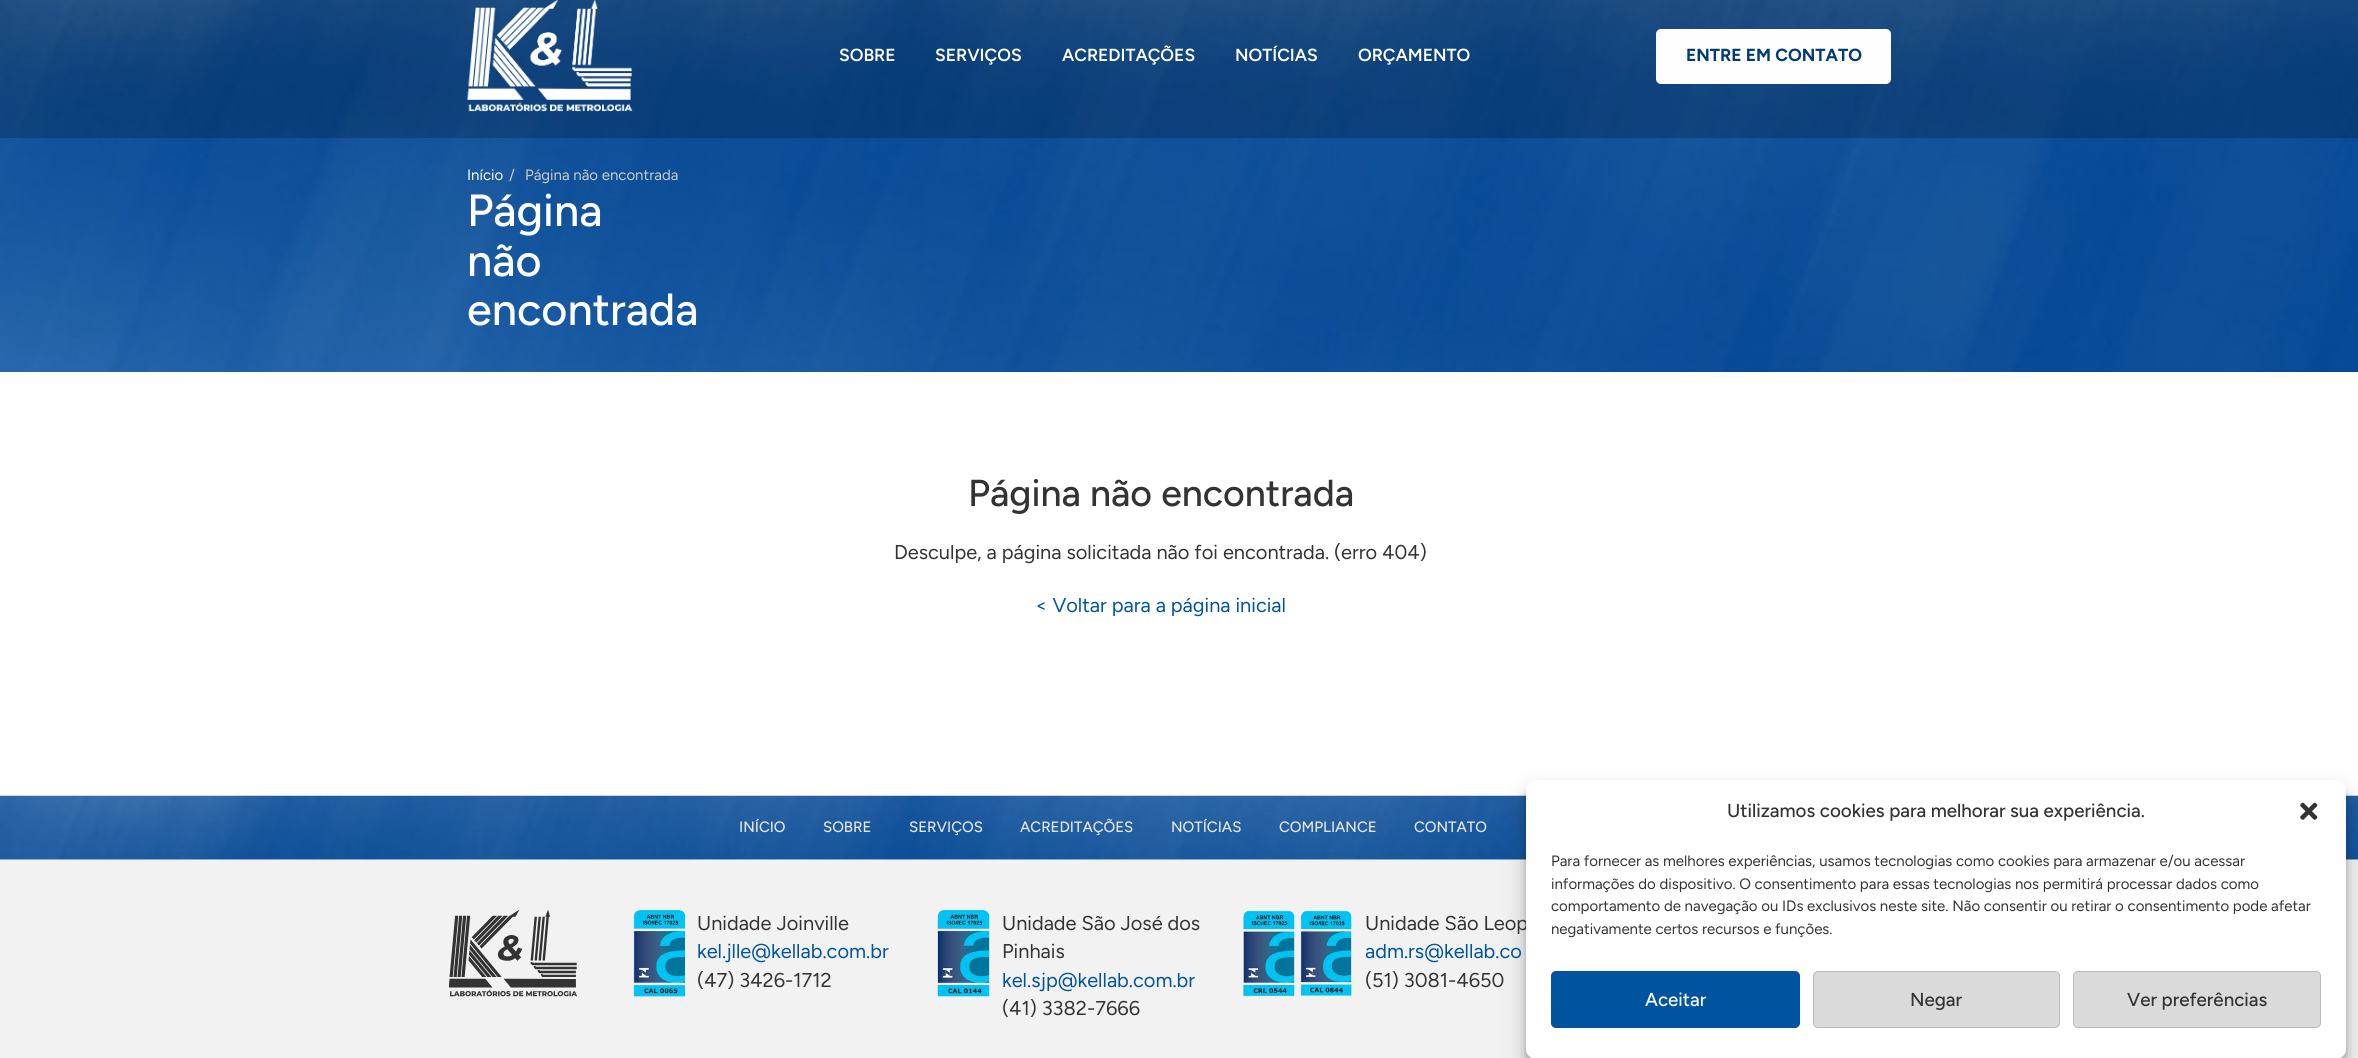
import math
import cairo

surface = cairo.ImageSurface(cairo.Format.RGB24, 2358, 1058)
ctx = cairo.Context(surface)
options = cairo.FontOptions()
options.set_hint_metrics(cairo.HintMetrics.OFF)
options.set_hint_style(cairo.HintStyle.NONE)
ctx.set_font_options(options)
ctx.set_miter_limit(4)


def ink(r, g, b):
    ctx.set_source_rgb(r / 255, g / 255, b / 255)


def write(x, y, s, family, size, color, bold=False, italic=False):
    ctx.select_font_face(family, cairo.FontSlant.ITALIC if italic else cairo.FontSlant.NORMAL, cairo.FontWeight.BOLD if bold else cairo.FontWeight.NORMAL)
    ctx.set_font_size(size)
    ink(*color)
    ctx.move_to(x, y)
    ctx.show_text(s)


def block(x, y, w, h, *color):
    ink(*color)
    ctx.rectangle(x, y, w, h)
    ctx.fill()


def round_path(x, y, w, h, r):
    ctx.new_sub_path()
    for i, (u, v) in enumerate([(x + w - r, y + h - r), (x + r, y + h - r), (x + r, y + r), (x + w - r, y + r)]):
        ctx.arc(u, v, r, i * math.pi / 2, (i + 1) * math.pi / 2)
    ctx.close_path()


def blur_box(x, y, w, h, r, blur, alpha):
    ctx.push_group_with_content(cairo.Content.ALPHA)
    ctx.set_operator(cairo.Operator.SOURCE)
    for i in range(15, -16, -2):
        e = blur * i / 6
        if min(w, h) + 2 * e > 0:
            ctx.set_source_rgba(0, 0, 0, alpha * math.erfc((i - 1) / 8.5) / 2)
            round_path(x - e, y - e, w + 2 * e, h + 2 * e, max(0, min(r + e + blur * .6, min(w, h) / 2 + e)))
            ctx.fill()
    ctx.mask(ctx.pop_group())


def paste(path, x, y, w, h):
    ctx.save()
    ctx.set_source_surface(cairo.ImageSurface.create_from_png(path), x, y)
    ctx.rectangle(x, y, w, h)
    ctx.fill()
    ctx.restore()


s1 = dict(family="Figtree SemiBold", size=17.5, color=(255, 255, 255))
s2 = dict(family="Figtree", size=17.5, color=(0, 59, 115), bold=True)
s3 = dict(family="Figtree", size=15, color=(255, 255, 255))
s4 = dict(family="Figtree", size=15, color=(204, 204, 204))
s5 = dict(family="Figtree Medium", size=45, color=(255, 255, 255))
s6 = dict(family="Figtree Medium", size=37.5, color=(51, 51, 51))
s7 = dict(family="Figtree", size=20, color=(51, 51, 51))
s8 = dict(family="Figtree", size=20, color=(0, 83, 159))
s9 = dict(family="Figtree Medium", size=15, color=(229, 229, 229))
s10 = dict(family="Figtree Medium", size=18.75, color=(51, 51, 51))
s11 = dict(family="Figtree", size=15, color=(51, 51, 51))
s12 = dict(family="Figtree Medium", size=18.75, color=(255, 255, 255))

ink(255, 255, 255)
ctx.paint()
paste("pic2.png", 0, 0, 2358, 372)
ctx.set_source_rgba(0.004, 0.004, 0.004, 0.2)
ctx.rectangle(0, 0, 2358, 138)
ctx.fill()
paste("pic1.png", 467, 0, 166, 112)
write(839, 61, "SOBRE", **s1)
write(935, 61, "SERVIÇOS", **s1)
write(1062, 61, "ACREDITAÇÕES", **s1)
write(1235, 61, "NOTÍCIAS", **s1)
write(1358, 61, "ORÇAMENTO", **s1)
ink(254, 254, 254)
round_path(1656, 29, 235, 55, 5)
ctx.fill()
write(1686, 61, "ENTRE EM CONTATO", **s2)
write(467, 180, "Início", **s3)
write(509, 180, "/", **s4)
write(525, 180, "Página não encontrada", **s4)
write(467, 226, "Página", **s5)
write(467, 276, "não", **s5)
write(467, 325, "encontrada", **s5)
write(968, 506, "Página não encontrada", **s6)
write(894, 559, "Desculpe, a página solicitada não foi encontrada. (erro 404)", **s7)
write(1035, 612, "< Voltar para a página inicial", **s8)
paste("pic3.png", 0, 795, 2358, 65)
write(739, 832, "INÍCIO", **s9)
write(823, 832, "SOBRE", **s9)
write(909, 832, "SERVIÇOS", **s9)
write(1020, 832, "ACREDITAÇÕES", **s9)
write(1171, 832, "NOTÍCIAS", **s9)
write(1279, 832, "COMPLIANCE", **s9)
write(1414, 832, "CONTATO", **s9)
block(0, 860, 2358, 198, 242, 242, 242)
ink(0, 0, 0)
blur_box(1526, 788, 820, 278, 10, 4, 0.23)
blur_box(1526, 793, 820, 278, 10, 12.5, 0.19)
write(1365, 930, "Unidade São Leop", **s7)
ink(255, 255, 255)
round_path(1526, 780, 820, 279, 10)
ctx.fill()
write(1727, 817, "Utilizamos cookies para melhorar sua experiência.", **s10)
paste("pic4.png", 2300, 802, 18, 18)
write(1551, 866, "Para fornecer as melhores experiências, usamos tecnologias como cookies para armazenar e/ou acessar", **s11)
write(1551, 889, "informações do dispositivo. O consentimento para essas tecnologias nos permitirá processar dados como", **s11)
write(1551, 911, "comportamento de navegação ou IDs exclusivos neste site. Não consentir ou retirar o consentimento pode afetar", **s11)
write(1551, 934, "negativamente certos recursos e funções.", **s11)
ink(0, 83, 159)
round_path(1551.5, 971.5, 248, 56, 4.5)
ctx.fill_preserve()
ctx.set_line_width(1)
ctx.stroke()
write(1645, 1006, "Aceitar", **s12)
ink(218, 218, 218)
round_path(1813.5, 971.5, 246, 56, 4.5)
ctx.fill_preserve()
ink(185, 186, 187)
ctx.stroke()
write(1910, 1006, "Negar", **s10)
ink(218, 218, 218)
round_path(2073.5, 971.5, 247, 56, 4.5)
ctx.fill_preserve()
ink(185, 186, 187)
ctx.stroke()
write(2127, 1006, "Ver preferências", **s10)
paste("pic5.png", 449, 910, 128, 87)
paste("pic6.png", 633, 910, 52, 87)
write(697, 930, "Unidade Joinville", **s7)
write(697, 958, "kel.jlle@kellab.com.br", **s8)
write(697, 987, "(47) 3426-1712", **s7)
paste("pic7.png", 937, 910, 53, 87)
write(1002, 930, "Unidade São José dos", **s7)
write(1002, 958, "Pinhais", **s7)
write(1002, 987, "kel.sjp@kellab.com.br", **s8)
write(1002, 1015, "(41) 3382-7666", **s7)
paste("pic8.png", 1243, 910, 52, 86)
paste("pic9.png", 1300, 910, 52, 86)
write(1365, 958, "adm.rs@kellab.co", **s8)
write(1365, 987, "(51) 3081-4650", **s7)
surface.write_to_png("screenshot.png")
